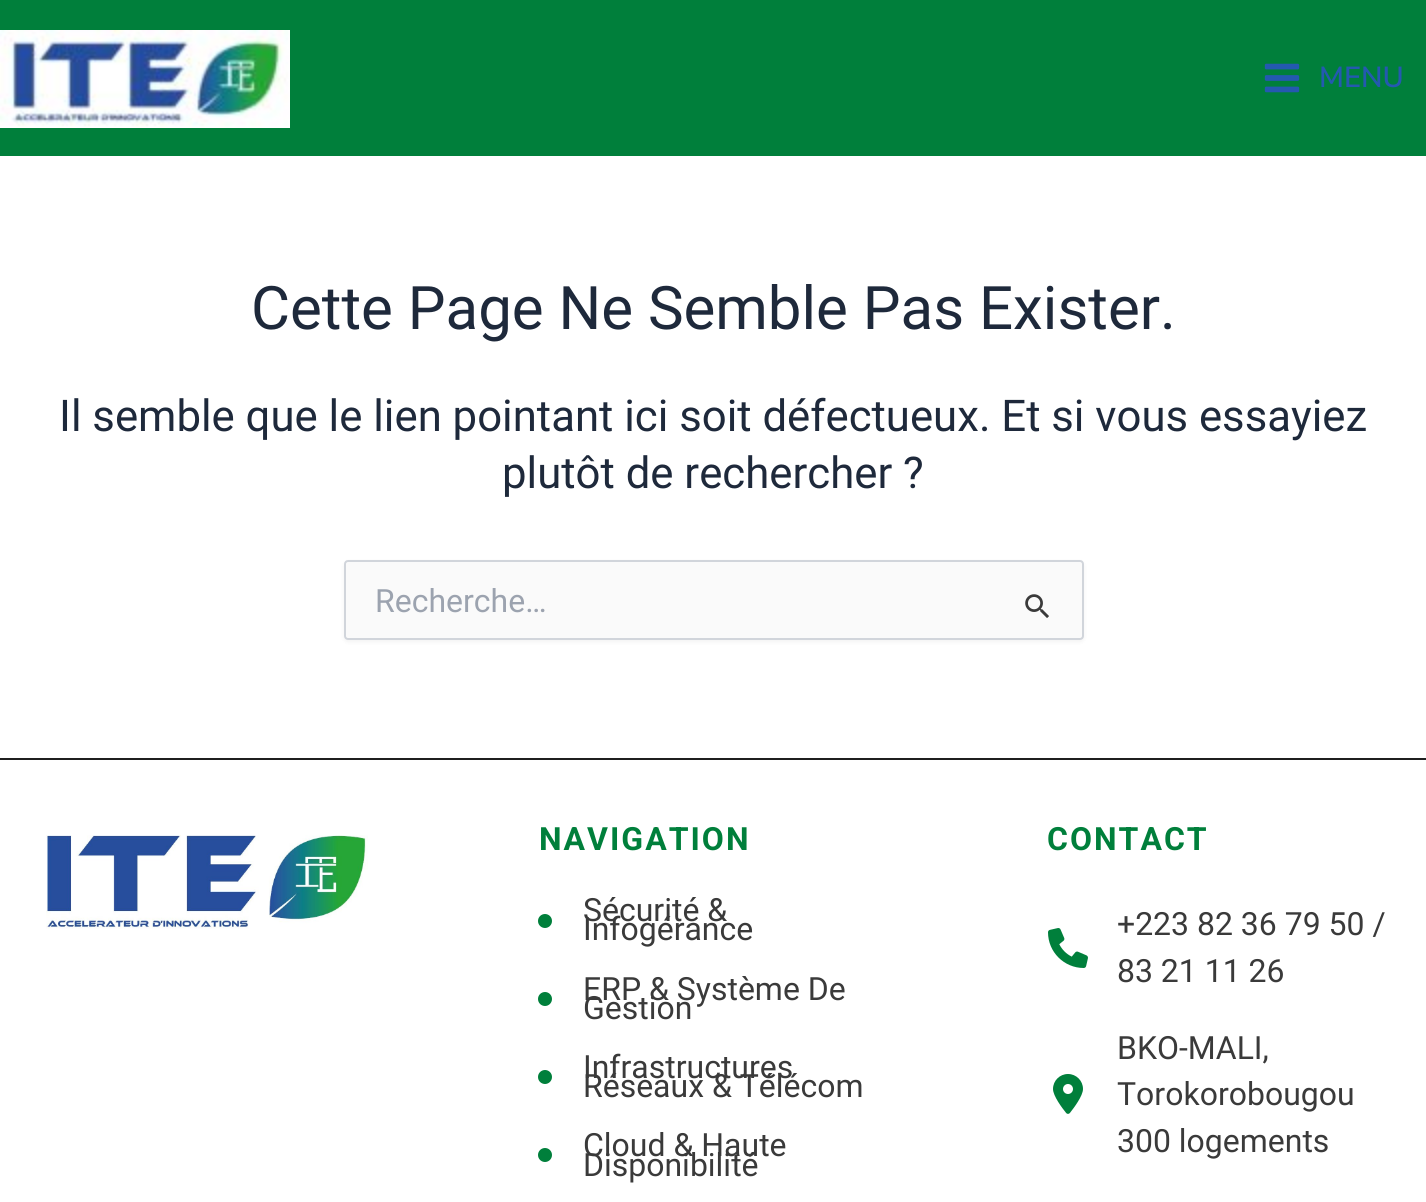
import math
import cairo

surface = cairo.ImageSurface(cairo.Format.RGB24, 1426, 1202)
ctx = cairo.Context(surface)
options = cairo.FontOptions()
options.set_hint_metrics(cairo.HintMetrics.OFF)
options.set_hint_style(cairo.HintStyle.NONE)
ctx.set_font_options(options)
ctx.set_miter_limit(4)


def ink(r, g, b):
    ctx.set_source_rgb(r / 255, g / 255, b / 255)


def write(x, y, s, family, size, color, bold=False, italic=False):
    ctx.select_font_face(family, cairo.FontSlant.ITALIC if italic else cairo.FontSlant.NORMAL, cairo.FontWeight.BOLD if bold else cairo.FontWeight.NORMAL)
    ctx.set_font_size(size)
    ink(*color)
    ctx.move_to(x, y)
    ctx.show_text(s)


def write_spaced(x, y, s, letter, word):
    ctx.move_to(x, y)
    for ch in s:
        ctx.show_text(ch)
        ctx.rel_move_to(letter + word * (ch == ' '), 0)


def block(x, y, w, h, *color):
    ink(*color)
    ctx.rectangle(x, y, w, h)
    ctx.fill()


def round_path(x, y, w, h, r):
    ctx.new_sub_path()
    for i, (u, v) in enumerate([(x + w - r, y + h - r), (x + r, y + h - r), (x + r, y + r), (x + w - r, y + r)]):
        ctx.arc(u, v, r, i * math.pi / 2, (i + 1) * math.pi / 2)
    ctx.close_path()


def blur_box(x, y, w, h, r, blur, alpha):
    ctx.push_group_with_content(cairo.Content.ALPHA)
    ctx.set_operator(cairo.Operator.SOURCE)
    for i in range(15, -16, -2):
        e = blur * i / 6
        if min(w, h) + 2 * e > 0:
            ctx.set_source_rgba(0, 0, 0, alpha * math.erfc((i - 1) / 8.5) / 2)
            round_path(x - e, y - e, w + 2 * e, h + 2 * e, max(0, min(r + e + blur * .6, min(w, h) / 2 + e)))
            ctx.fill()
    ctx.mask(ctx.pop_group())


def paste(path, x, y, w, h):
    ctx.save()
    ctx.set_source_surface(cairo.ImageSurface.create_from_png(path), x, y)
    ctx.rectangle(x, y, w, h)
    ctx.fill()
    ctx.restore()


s1 = dict(family="Nunito Sans ExtraLight", size=29, color=(36, 89, 176))
s2 = dict(family="Roboto", size=60, color=(30, 41, 59))
s3 = dict(family="Roboto", size=43.75, color=(30, 41, 59))
s4 = dict(family="Roboto", size=32, color=(156, 163, 175))
s5 = dict(family="Roboto", size=32, color=(58, 58, 58))

ink(255, 255, 255)
ctx.paint()
block(0, 0, 1426, 156, 0, 127, 59)
paste("pic1.png", 0, 30, 290, 98)
paste("pic2.png", 1264, 63, 36, 30)
write(1319, 87, "MENU", **s1)
write(251, 329, "Cette Page Ne Semble Pas Exister.", **s2)
write(59, 431, "Il semble que le lien pointant ici soit défectueux. Et si vous essayiez", **s3)
write(502, 488, "plutôt de rechercher ?", **s3)
ink(0, 0, 0)
blur_box(344, 562, 740, 80, 4, 2, 0.05)
ink(250, 250, 250)
round_path(345, 561, 738, 78, 3)
ctx.fill_preserve()
ink(209, 213, 219)
ctx.stroke()
write(375, 612, "Recherche…", **s4)
paste("pic3.png", 1025, 594, 24, 24)
block(0, 758, 1426, 2, 31, 31, 31)
paste("pic4.png", 46, 835, 322, 94)
ctx.select_font_face("Roboto", cairo.FontSlant.NORMAL, cairo.FontWeight.BOLD)
ink(0, 127, 59)
write_spaced(539, 850, "NAVIGATION", 2, 0)
paste("pic5.png", 538, 914, 14, 14)
write(583, 921, "Sécurité &", **s5)
write(583, 940, "Infogérance", **s5)
paste("pic5.png", 538, 992, 14, 14)
write(583, 1000, "ERP & Système De", **s5)
write(583, 1019, "Gestion", **s5)
paste("pic5.png", 538, 1070, 14, 14)
write(583, 1078, "Infrastructures", **s5)
write(583, 1097, "Réseaux & Télécom", **s5)
paste("pic5.png", 538, 1148, 14, 14)
write(583, 1156, "Cloud & Haute", **s5)
write(583, 1176, "Disponibilité", **s5)
ctx.select_font_face("Roboto", cairo.FontSlant.NORMAL, cairo.FontWeight.BOLD)
ink(0, 127, 59)
write_spaced(1047, 850, "CONTACT", 2, 0)
paste("pic6.png", 1048, 928, 40, 40)
write(1117, 935, "+223 82 36 79 50 /", **s5)
write(1117, 982, "83 21 11 26", **s5)
paste("pic7.png", 1053, 1074, 30, 40)
write(1117, 1059, "BKO-MALI,", **s5)
write(1117, 1105, "Torokorobougou", **s5)
write(1117, 1152, "300 logements", **s5)
surface.write_to_png("screenshot.png")
